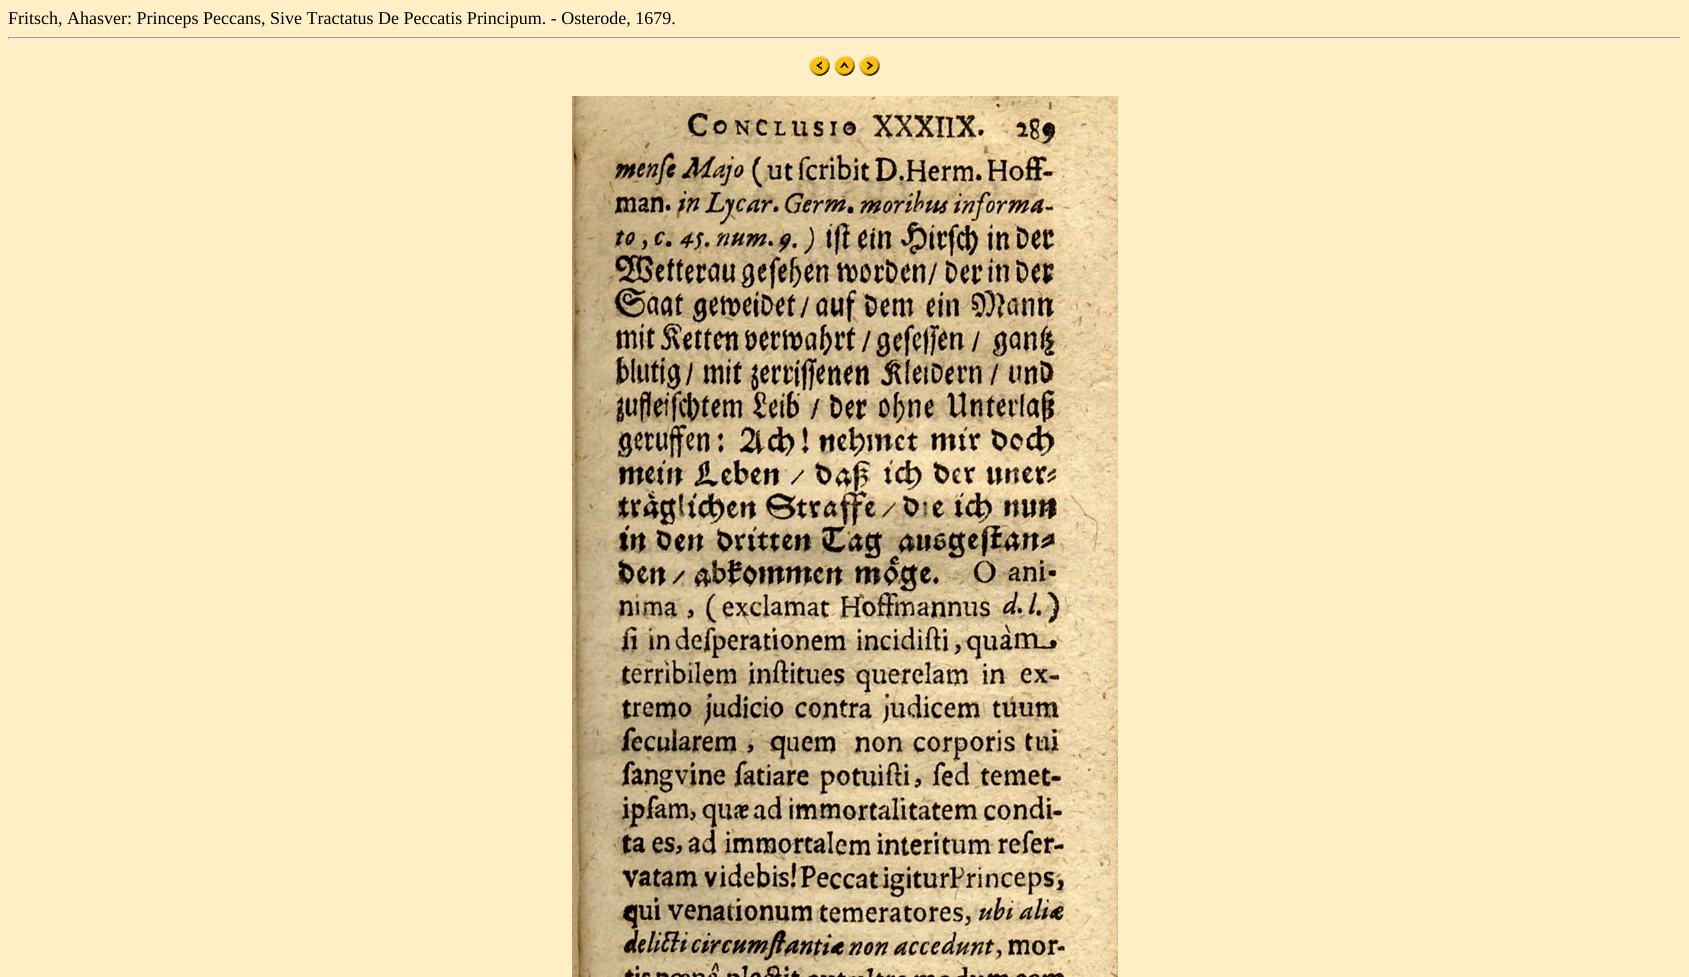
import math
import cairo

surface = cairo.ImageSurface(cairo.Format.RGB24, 1689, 977)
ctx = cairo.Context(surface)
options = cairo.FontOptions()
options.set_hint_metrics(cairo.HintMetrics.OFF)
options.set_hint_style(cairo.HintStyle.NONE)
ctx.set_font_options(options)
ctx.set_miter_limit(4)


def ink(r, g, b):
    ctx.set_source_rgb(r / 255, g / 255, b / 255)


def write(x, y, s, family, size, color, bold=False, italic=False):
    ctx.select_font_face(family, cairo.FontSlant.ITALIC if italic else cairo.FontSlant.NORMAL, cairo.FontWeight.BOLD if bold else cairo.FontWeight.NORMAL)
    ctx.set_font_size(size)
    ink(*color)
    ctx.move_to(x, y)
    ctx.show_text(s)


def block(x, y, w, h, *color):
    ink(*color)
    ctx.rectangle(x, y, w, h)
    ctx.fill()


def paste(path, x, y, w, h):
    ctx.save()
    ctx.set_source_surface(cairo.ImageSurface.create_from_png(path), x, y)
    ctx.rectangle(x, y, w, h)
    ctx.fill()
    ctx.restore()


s1 = dict(family="Liberation Serif", size=18, color=(0, 0, 0))

ink(255, 239, 198)
ctx.paint()
write(8, 24, "Fritsch, Ahasver: Princeps Peccans, Sive Tractatus De Peccatis Principum. - Osterode, 1679.", **s1)
block(8, 37, 1673, 1, 159, 159, 159)
block(1680, 37, 1, 2, 238, 238, 238)
block(8, 38, 1673, 1, 238, 238, 238)
block(8, 37, 1, 2, 159, 159, 159)
paste("pic1.png", 809, 55, 21, 21)
paste("pic2.png", 834, 55, 21, 21)
paste("pic3.png", 859, 55, 21, 21)
paste("pic4.png", 572, 96, 546, 881)
surface.write_to_png("screenshot.png")
